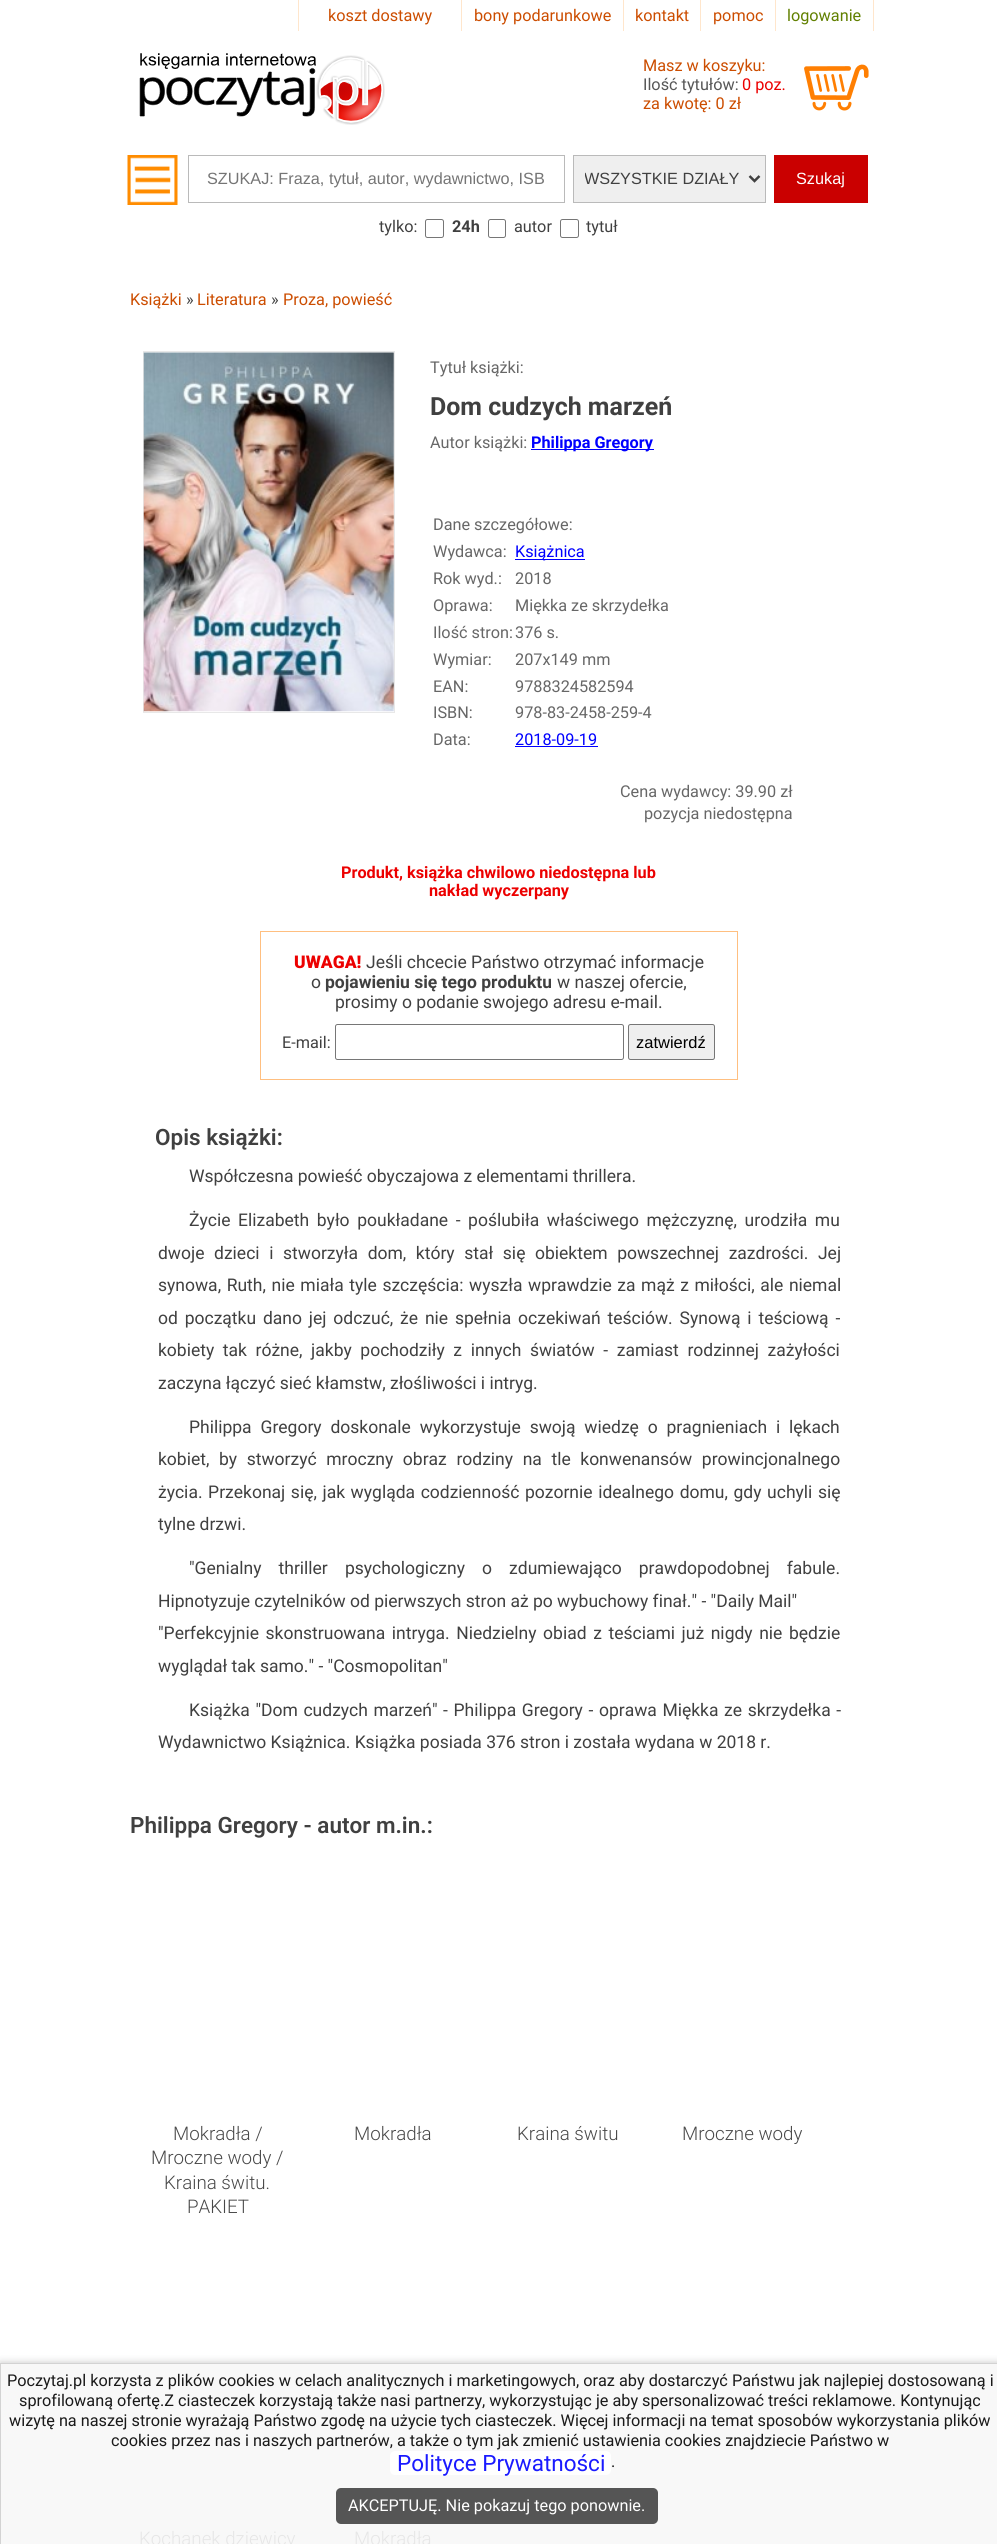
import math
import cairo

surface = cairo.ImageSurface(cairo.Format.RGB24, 997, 2544)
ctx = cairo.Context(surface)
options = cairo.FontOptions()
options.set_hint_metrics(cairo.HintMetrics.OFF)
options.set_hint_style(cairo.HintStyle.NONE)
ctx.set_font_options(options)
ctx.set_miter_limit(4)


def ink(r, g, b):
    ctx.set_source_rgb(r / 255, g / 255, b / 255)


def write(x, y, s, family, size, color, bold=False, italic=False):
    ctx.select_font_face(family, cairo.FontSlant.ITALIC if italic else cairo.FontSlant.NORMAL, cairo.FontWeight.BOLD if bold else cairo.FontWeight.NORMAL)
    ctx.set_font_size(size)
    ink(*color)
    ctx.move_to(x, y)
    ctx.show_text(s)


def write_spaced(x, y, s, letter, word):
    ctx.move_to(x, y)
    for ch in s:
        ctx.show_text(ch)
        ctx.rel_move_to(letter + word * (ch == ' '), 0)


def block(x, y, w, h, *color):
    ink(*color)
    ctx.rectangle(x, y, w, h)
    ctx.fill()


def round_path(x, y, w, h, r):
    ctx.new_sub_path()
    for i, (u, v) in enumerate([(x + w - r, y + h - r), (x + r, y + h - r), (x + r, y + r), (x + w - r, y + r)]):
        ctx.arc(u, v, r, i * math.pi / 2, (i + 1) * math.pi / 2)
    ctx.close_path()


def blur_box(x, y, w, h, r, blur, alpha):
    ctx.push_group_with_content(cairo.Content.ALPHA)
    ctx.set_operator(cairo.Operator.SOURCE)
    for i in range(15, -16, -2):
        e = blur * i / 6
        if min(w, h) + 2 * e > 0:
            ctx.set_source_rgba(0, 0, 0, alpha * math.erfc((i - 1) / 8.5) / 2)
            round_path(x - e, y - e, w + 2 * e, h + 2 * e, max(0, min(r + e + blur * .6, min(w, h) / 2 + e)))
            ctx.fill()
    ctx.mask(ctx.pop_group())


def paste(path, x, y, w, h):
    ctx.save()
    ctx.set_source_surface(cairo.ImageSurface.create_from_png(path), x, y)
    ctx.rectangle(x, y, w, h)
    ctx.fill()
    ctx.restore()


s1 = dict(family="Roboto", size=16.25, color=(204, 77, 0))
s2 = dict(family="Roboto", size=16.25, color=(97, 128, 0))
s3 = dict(family="Roboto", size=16.25, color=(87, 87, 87))
s4 = dict(family="Roboto", size=16.25, color=(236, 0, 0))
s5 = dict(family="Liberation Sans", size=16.25, color=(117, 117, 117))
s6 = dict(family="Liberation Sans", size=16.25, color=(64, 64, 64))
s7 = dict(family="Liberation Sans", size=16.25, color=(255, 255, 255))
s8 = dict(family="Roboto", size=16.25, color=(64, 64, 64))
s9 = dict(family="Roboto", size=16.25, color=(64, 64, 64), bold=True)
s10 = dict(family="Roboto", size=16.25, color=(103, 103, 103))
s11 = dict(family="Roboto", size=25, color=(64, 64, 64), bold=True)
s12 = dict(family="Roboto", size=16.25, color=(0, 0, 255), bold=True)
s13 = dict(family="Roboto", size=16.25, color=(0, 0, 255))
s14 = dict(family="Roboto", size=16.25, color=(236, 0, 0), bold=True)
s15 = dict(family="Roboto Black", size=17.5, color=(236, 0, 0))
s16 = dict(family="Roboto", size=17.5, color=(64, 64, 64))
s17 = dict(family="Roboto", size=17.5, color=(64, 64, 64), bold=True)
s18 = dict(family="Liberation Sans", size=16.5, color=(0, 0, 0))
s19 = dict(family="Roboto SemiBold", size=22.5, color=(64, 64, 64))
s20 = dict(family="Roboto Light", size=18.75, color=(72, 72, 72))
s21 = dict(family="Roboto Light", size=18.75, color=(230, 230, 230))
s22 = dict(family="Roboto", size=16.25, color=(26, 26, 26))
s23 = dict(family="Roboto", size=22.5, color=(26, 26, 255))
s24 = dict(family="Roboto", size=16.25, color=(255, 255, 255))

ink(255, 255, 255)
ctx.paint()
block(1, 2364, 996, 180, 248, 248, 248)
block(461, 0, 1, 31, 255, 230, 204)
block(298, 0, 1, 31, 255, 230, 204)
write(328, 21, "koszt dostawy", **s1)
block(623, 0, 1, 31, 255, 230, 204)
write(474, 21, "bony podarunkowe", **s1)
block(700, 0, 1, 31, 255, 230, 204)
write(635, 21, "kontakt", **s1)
block(775, 0, 1, 31, 255, 230, 204)
write(713, 21, "pomoc", **s1)
block(873, 0, 1, 31, 255, 230, 204)
write(787, 21, "logowanie", **s2)
paste("pic1.png", 139, 53, 246, 72)
write(643, 71, "Masz w koszyku:", **s1)
write(643, 90, "Ilość tytułów:", **s3)
write(742, 90, "0 poz.", **s4)
write(643, 109, "za kwotę: 0 zł", **s1)
paste("pic2.png", 804, 64, 65, 47)
paste("pic3.png", 127, 155, 51, 50)
ctx.rectangle(188.5, 155.5, 376, 47)
ink(186, 186, 186)
ctx.set_line_width(1)
ctx.stroke()
write(207, 184, "SZUKAJ: Fraza, tytuł, autor, wydawnictwo, ISB", **s5)
ink(239, 239, 239)
ctx.rectangle(573.5, 155.5, 192, 47)
ctx.fill_preserve()
ink(186, 186, 186)
ctx.stroke()
ctx.new_path()
ctx.move_to(749.5, 176)
ctx.line_to(754.5, 181)
ctx.line_to(759.5, 176)
ink(64, 64, 64)
ctx.set_line_width(2.5)
ctx.stroke()
ctx.save()
ctx.rectangle(585, 169, 160, 21)
ctx.clip()
write(584, 184, "WSZYSTKIE DZIAŁY", **s6)
ctx.restore()
block(774, 155, 94, 48, 202, 0, 0)
write(796, 184, "Szukaj", **s7)
write(379, 232, "tylko:", **s8)
round_path(425.5, 219.5, 18, 18, 2)
ink(118, 118, 118)
ctx.set_line_width(1)
ctx.stroke()
write(452, 232, "24h", **s9)
round_path(488.5, 219.5, 17, 18, 2)
ink(118, 118, 118)
ctx.stroke()
write(514, 232, "autor", **s8)
round_path(560.5, 219.5, 18, 18, 2)
ink(118, 118, 118)
ctx.stroke()
write(586, 232, "tytuł", **s8)
write(130, 305, "Książki", **s1)
write(186, 305, "»", **s8)
write(197, 305, "Literatura", **s1)
write(271, 305, "»", **s8)
write(283, 305, "Proza, powieść", **s1)
ctx.rectangle(143.5, 351.5, 251, 361)
ink(232, 232, 232)
ctx.stroke()
paste("pic4.png", 143, 352, 251, 360)
write(430, 373, "Tytuł książki:", **s10)
write(430, 415, "Dom cudzych marzeń", **s11)
write(430, 448, "Autor książki:", **s10)
block(531, 449, 123, 1, 0, 0, 255)
write(531, 448, "Philippa Gregory", **s12)
write(433, 530, "Dane szczegółowe:", **s10)
write(433, 557, "Wydawca:", **s10)
block(515, 559, 70, 1, 0, 0, 255)
write(515, 557, "Książnica", **s13)
write(433, 584, "Rok wyd.:", **s10)
write(515, 584, "2018", **s10)
write(433, 611, "Oprawa:", **s10)
write(515, 611, "Miękka ze skrzydełka", **s10)
write(433, 638, "Ilość stron:", **s10)
write(515, 638, "376 s.", **s10)
write(433, 665, "Wymiar:", **s10)
write(515, 665, "207x149 mm", **s10)
write(433, 692, "EAN:", **s10)
write(515, 692, "9788324582594", **s10)
write(433, 718, "ISBN:", **s10)
write(515, 718, "978-83-2458-259-4", **s10)
write(433, 745, "Data:", **s10)
write(515, 745, "2018-09-19", **s13)
block(515, 746, 83, 1, 0, 0, 255)
write(620, 797, "Cena wydawcy: 39.90 zł", **s10)
write(644, 819, "pozycja niedostępna", **s10)
write(341, 878, "Produkt, książka chwilowo niedostępna lub", **s14)
write(429, 896, "nakład wyczerpany", **s14)
ctx.rectangle(260.5, 931.5, 477, 148)
ink(255, 191, 128)
ctx.stroke()
write(294, 968, "UWAGA!", **s15)
write(366, 968, "Jeśli chcecie Państwo otrzymać informacje", **s16)
write(311, 988, "o", **s16)
write(325, 988, "pojawieniu się tego produktu", **s17)
write(557, 988, "w naszej ofercie,", **s16)
write(335, 1008, "prosimy o podanie swojego adresu e-mail.", **s16)
write(282, 1048, "E-mail:", **s8)
round_path(335.5, 1024.5, 288, 35, 2)
ink(118, 118, 118)
ctx.stroke()
ink(239, 239, 239)
round_path(628.5, 1024.5, 86, 35, 2)
ctx.fill_preserve()
ink(118, 118, 118)
ctx.stroke()
write(636, 1048, "zatwierdź", **s18)
write(155, 1145, "Opis książki:", **s19)
write(189, 1182, "Współczesna powieść obyczajowa z elementami thrillera.", **s16)
write_spaced(189, 1226, "Życie Elizabeth było poukładane - poślubiła właściwego mężczyznę, urodziła mu", 0, 3.25)
write_spaced(158, 1259, "dwoje dzieci i stworzyła dom, który stał się obiektem powszechnej zazdrości. Jej", 0, 5.25)
write_spaced(158, 1291, "synowa, Ruth, nie miała tyle szczęścia: wyszła wprawdzie za mąż z miłości, ale niemal", 0, 1.25)
write_spaced(158, 1324, "od początku dano jej odczuć, że nie spełnia oczekiwań teściów. Synową i teściową -", 0, 2.5)
write_spaced(158, 1356, "kobiety tak różne, jakby pochodziły z innych światów - zamiast rodzinnej zażyłości", 0, 4.25)
write(158, 1389, "zaczyna łączyć sieć kłamstw, złośliwości i intryg.", **s16)
write_spaced(189, 1433, "Philippa Gregory doskonale wykorzystuje swoją wiedzę o pragnieniach i lękach", 0, 4.5)
write_spaced(158, 1465, "kobiet, by stworzyć mroczny obraz rodziny na tle konwenansów prowincjonalnego", 0, 5.25)
write_spaced(158, 1498, "życia. Przekonaj się, jak wygląda codzienność pozornie idealnego domu, gdy uchyli się", 0, 1.25)
write(158, 1530, "tylne drzwi.", **s16)
write_spaced(189, 1574, "\"Genialny thriller psychologiczny o zdumiewająco prawdopodobnej fabule.", 0, 12.75)
write(158, 1607, "Hipnotyzuje czytelników od pierwszych stron aż po wybuchowy finał.\" - \"Daily Mail\"", **s16)
write_spaced(158, 1639, "\"Perfekcyjnie skonstruowana intryga. Niedzielny obiad z teściami już nigdy nie będzie", 0, 2.25)
write(158, 1672, "wyglądał tak samo.\" - \"Cosmopolitan\"", **s16)
write_spaced(189, 1716, "Książka \"Dom cudzych marzeń\" - Philippa Gregory - oprawa Miękka ze skrzydełka -", 0, 1.25)
write(158, 1748, "Wydawnictwo Książnica. Książka posiada 376 stron i została wydana w 2018 r.", **s16)
write(130, 1833, "Philippa Gregory - autor m.in.:", **s19)
write(173, 2140, "Mokradła /", **s20)
write(151, 2164, "Mroczne wody /", **s20)
write(164, 2189, "Kraina świtu.", **s20)
write(187, 2213, "PAKIET", **s20)
write(354, 2140, "Mokradła", **s20)
write(517, 2140, "Kraina świtu", **s20)
write(682, 2140, "Mroczne wody", **s20)
write(139, 2545, "Kochanek dziewicy", **s21)
write(354, 2545, "Mokradła", **s21)
ctx.save()
ctx.rectangle(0, 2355, 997, 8)
ctx.clip()
ink(198, 198, 198)
blur_box(0, 2363, 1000, 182, 0, 4, 1)
ctx.restore()
ctx.rectangle(0.5, 2363.5, 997, 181)
ink(211, 211, 211)
ctx.stroke()
write(7, 2386, "Poczytaj.pl korzysta z plików cookies w celach analitycznych i marketingowych, oraz aby dostarczyć Państwu jak najlepiej dostosowaną i", **s22)
write(19, 2406, "sprofilowaną ofertę.Z ciasteczek korzystają także nasi partnerzy, wykorzystując je aby spersonalizować treści reklamowe. Kontynując", **s22)
write(9, 2426, "wizytę na naszej stronie wyrażają Państwo zgodę na użycie tych ciasteczek. Więcej informacji na temat sposobów wykorzystania plików", **s22)
write(111, 2446, "cookies przez nas i naszych partnerów, a także o tym jak zmienić ustawienia cookies znajdziecie Państwo w", **s22)
ink(255, 255, 255)
round_path(390, 2451, 221, 24, 5)
ctx.fill()
write(397, 2471, "Polityce Prywatności", **s23)
write(611, 2467, ".", **s22)
ink(85, 85, 85)
round_path(336, 2488, 322, 36, 5)
ctx.fill()
write(348, 2511, "AKCEPTUJĘ. Nie pokazuj tego ponownie.", **s24)
surface.write_to_png("screenshot.png")
